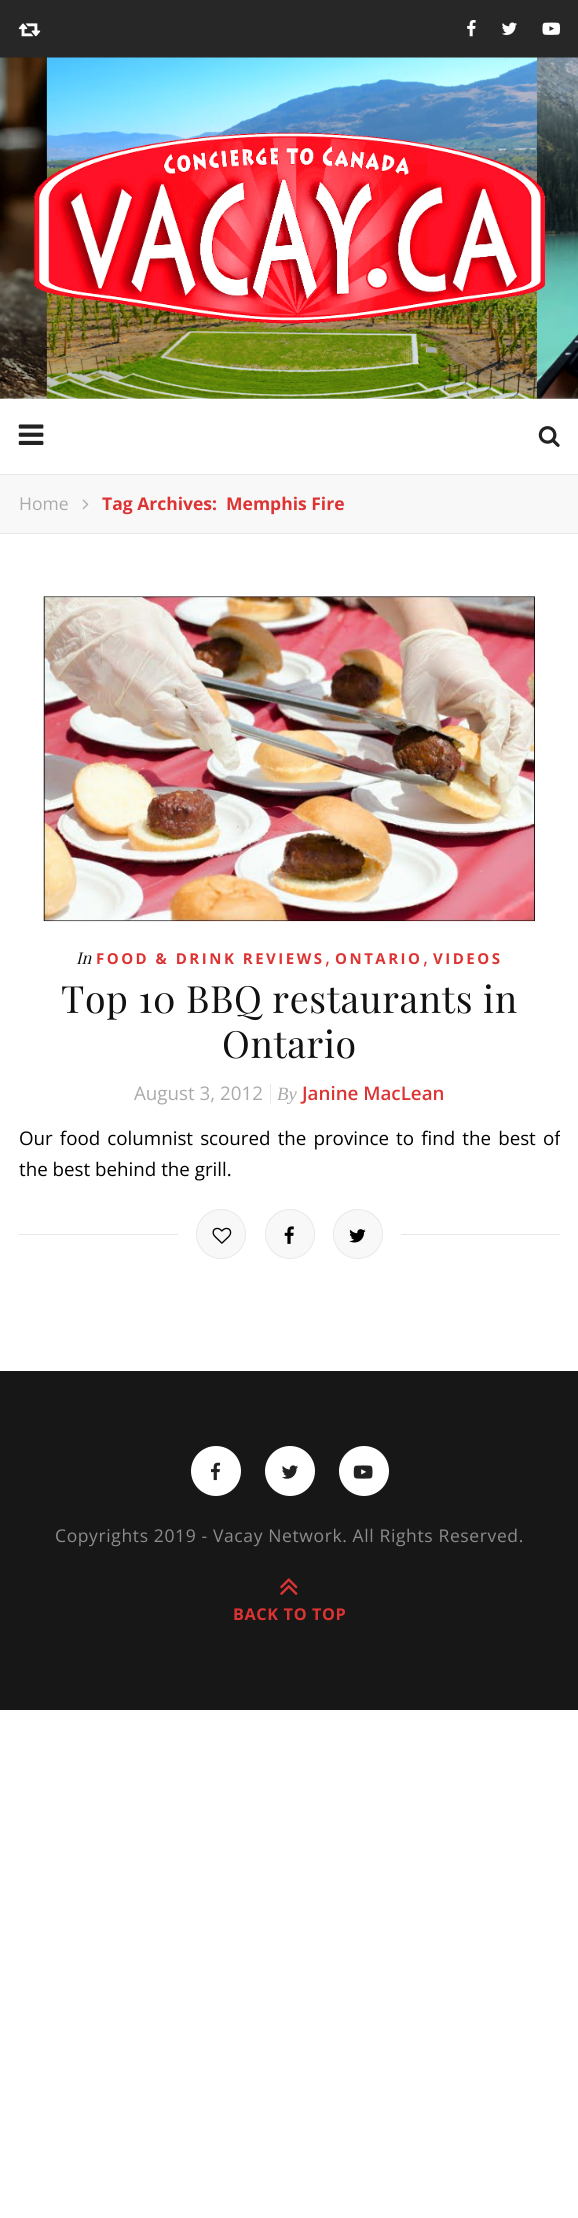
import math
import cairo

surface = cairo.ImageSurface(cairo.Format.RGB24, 578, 2218)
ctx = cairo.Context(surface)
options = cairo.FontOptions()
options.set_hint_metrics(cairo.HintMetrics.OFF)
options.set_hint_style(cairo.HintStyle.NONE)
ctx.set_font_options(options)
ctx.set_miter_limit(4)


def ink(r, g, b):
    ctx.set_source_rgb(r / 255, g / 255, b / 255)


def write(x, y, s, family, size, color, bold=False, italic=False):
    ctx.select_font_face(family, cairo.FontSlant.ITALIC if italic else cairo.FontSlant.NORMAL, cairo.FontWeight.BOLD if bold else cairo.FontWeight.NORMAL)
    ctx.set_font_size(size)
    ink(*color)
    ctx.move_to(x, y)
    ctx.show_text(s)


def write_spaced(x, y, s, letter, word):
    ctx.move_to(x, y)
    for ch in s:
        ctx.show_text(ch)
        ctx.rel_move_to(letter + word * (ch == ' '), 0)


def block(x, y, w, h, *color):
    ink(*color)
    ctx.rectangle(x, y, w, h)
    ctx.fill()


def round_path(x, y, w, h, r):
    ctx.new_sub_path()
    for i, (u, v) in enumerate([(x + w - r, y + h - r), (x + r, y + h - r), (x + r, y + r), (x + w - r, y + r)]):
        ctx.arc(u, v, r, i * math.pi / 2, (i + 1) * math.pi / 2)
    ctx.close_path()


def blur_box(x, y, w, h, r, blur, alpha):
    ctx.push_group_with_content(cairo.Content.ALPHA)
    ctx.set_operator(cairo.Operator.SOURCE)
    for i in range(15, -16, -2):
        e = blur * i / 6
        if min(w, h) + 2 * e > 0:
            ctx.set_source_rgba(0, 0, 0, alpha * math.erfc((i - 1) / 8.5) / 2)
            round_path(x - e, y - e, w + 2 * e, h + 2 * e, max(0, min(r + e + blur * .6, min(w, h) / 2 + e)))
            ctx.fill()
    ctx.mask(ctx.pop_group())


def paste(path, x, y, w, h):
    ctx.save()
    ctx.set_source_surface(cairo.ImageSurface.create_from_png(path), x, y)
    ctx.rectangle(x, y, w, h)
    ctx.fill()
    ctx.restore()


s1 = dict(family="Open Sans", size=17.5, color=(170, 170, 170))
s2 = dict(family="Open Sans", size=17.5, color=(221, 51, 51), bold=True)
s3 = dict(family="Playfair Display", size=16.25, color=(17, 17, 17), italic=True)
s4 = dict(family="Open Sans", size=20, color=(221, 51, 51))
s5 = dict(family="Open Sans", size=18.75, color=(170, 170, 170))
s6 = dict(family="Liberation Serif", size=18.75, color=(170, 170, 170), italic=True)
s7 = dict(family="Open Sans SemiBold", size=18.75, color=(221, 51, 51))
s8 = dict(family="Open Sans", size=18.75, color=(0, 0, 0))

ink(255, 255, 255)
ctx.paint()
block(0, 0, 578, 58, 39, 39, 39)
paste("pic1.png", 18, 23, 23, 14)
paste("pic2.png", 467, 20, 9, 17)
paste("pic3.png", 501, 22, 16, 13)
paste("pic4.png", 542, 22, 18, 13)
paste("pic5.png", 0, 57, 578, 342)
paste("pic6.png", 33, 132, 512, 192)
ink(185, 185, 185)
blur_box(0, 400, 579, 75, 0, 3, 0.5)
block(0, 399, 578, 75, 255, 255, 255)
paste("pic7.png", 18, 424, 26, 21)
paste("pic8.png", 538, 426, 22, 21)
block(0, 475, 578, 58, 248, 248, 248)
block(0, 474, 578, 1, 232, 232, 232)
block(0, 533, 578, 1, 232, 232, 232)
write(19, 510, "Home", **s1)
paste("pic9.png", 82, 499, 7, 11)
write(102, 510, "Tag Archives:  Memphis Fire", **s2)
paste("pic10.png", 43, 596, 492, 326)
write(76, 964, "In", **s3)
ctx.select_font_face("Open Sans", cairo.FontSlant.NORMAL, cairo.FontWeight.BOLD)
ctx.set_font_size(15)
ink(221, 51, 51)
write_spaced(96, 964, "FOOD & DRINK REVIEWS", 2.5, 0)
write(325, 964, ",", **s4)
ctx.select_font_face("Open Sans", cairo.FontSlant.NORMAL, cairo.FontWeight.BOLD)
ctx.set_font_size(15)
write_spaced(335, 964, "ONTARIO", 2.5, 0)
write(423, 964, ",", **s4)
ctx.select_font_face("Open Sans", cairo.FontSlant.NORMAL, cairo.FontWeight.BOLD)
ctx.set_font_size(15)
write_spaced(433, 964, "VIDEOS", 2.5, 0)
ctx.select_font_face("Playfair Display")
ctx.set_font_size(37.5)
ink(17, 17, 17)
write_spaced(61, 1013, "Top 10 BBQ restaurants in", 0.62, 0)
write_spaced(222, 1058, "Ontario", 0.62, 0)
write(134, 1100, "August 3, 2012", **s5)
write(277, 1100, "By", **s6)
block(270, 1084, 1, 20, 232, 232, 232)
write(302, 1100, "Janine MacLean", **s7)
ctx.save()
ctx.rectangle(19, 1123, 541, 86)
ctx.clip()
ctx.select_font_face("Open Sans")
ink(0, 0, 0)
write_spaced(19, 1145, "Our food columnist scoured the province to find the best of", 0, 2.25)
ctx.restore()
write(19, 1176, "the best behind the grill.", **s8)
block(19, 1234, 159, 1, 232, 232, 232)
ink(248, 248, 248)
ctx.new_path()
ctx.arc(221, 1234, 24.5, 0, 2 * math.pi)
ctx.fill_preserve()
ink(232, 232, 232)
ctx.set_line_width(1)
ctx.stroke()
paste("pic11.png", 212, 1227, 20, 17)
ink(248, 248, 248)
ctx.arc(290, 1234, 24.5, 0, 2 * math.pi)
ctx.fill_preserve()
ink(232, 232, 232)
ctx.stroke()
paste("pic12.png", 284, 1226, 10, 18)
ink(248, 248, 248)
ctx.arc(358, 1234, 24.5, 0, 2 * math.pi)
ctx.fill_preserve()
ink(232, 232, 232)
ctx.stroke()
paste("pic13.png", 349, 1229, 17, 14)
block(401, 1234, 159, 1, 232, 232, 232)
block(0, 1371, 578, 339, 23, 23, 23)
ink(255, 255, 255)
ctx.arc(216, 1471, 25, 0, 2 * math.pi)
ctx.fill()
paste("pic14.png", 211, 1462, 10, 19)
ctx.arc(290, 1471, 25, 0, 2 * math.pi)
ctx.fill()
paste("pic15.png", 282, 1465, 16, 14)
ctx.arc(364, 1471, 25, 0, 2 * math.pi)
ctx.fill()
paste("pic16.png", 353, 1465, 20, 14)
ctx.set_font_size(17.5)
ink(140, 140, 140)
write_spaced(55, 1542, "Copyrights 2019 - Vacay Network. All Rights Reserved.", 0.62, 0)
paste("pic17.png", 280, 1578, 18, 17)
ctx.select_font_face("Open Sans", cairo.FontSlant.NORMAL, cairo.FontWeight.BOLD)
ctx.set_font_size(16.25)
ink(221, 51, 51)
write_spaced(233, 1620, "BACK TO TOP", 0.62, 0)
surface.write_to_png("screenshot.png")
